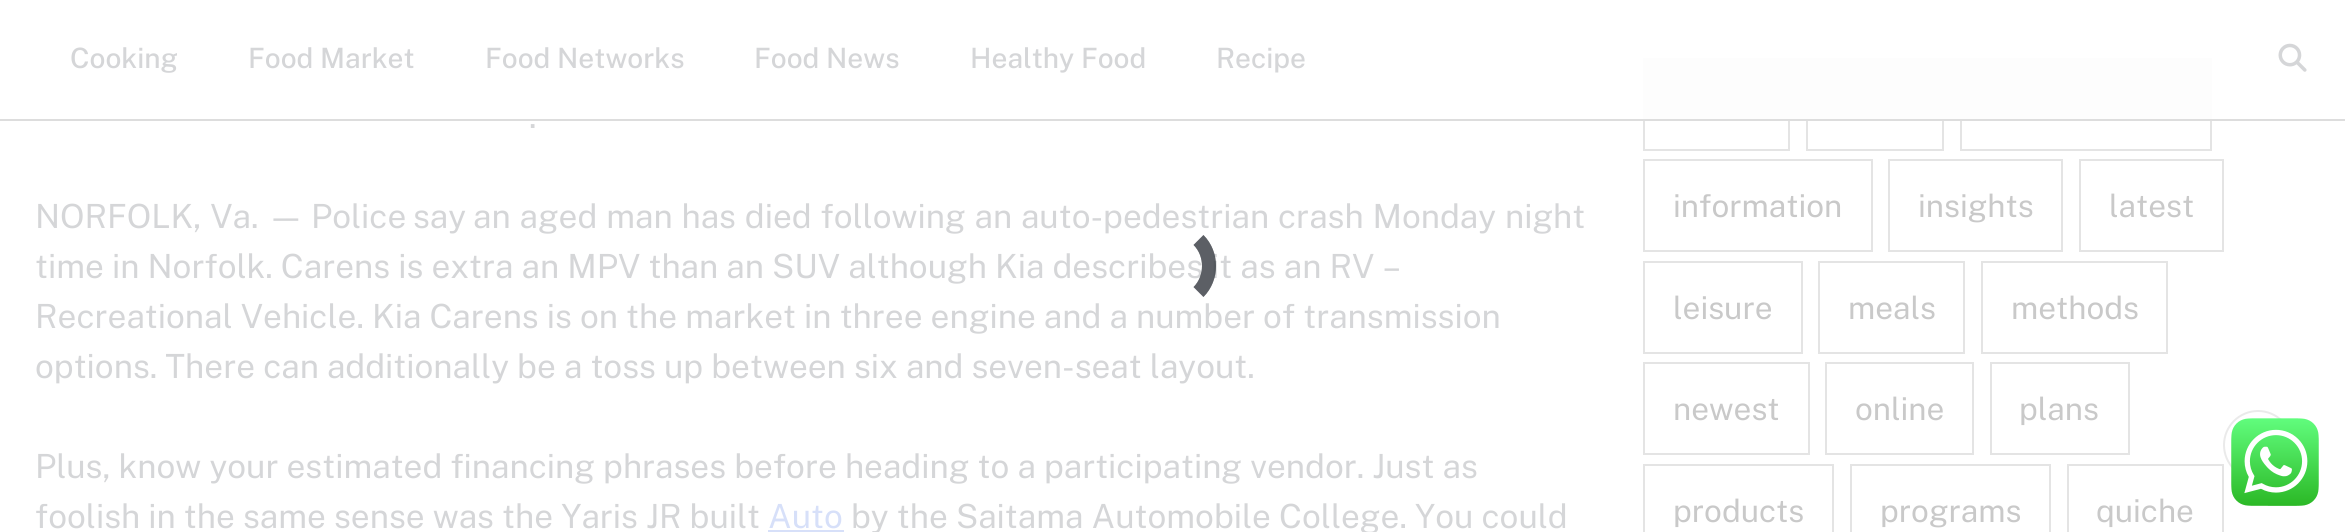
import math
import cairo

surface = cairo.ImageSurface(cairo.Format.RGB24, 2345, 532)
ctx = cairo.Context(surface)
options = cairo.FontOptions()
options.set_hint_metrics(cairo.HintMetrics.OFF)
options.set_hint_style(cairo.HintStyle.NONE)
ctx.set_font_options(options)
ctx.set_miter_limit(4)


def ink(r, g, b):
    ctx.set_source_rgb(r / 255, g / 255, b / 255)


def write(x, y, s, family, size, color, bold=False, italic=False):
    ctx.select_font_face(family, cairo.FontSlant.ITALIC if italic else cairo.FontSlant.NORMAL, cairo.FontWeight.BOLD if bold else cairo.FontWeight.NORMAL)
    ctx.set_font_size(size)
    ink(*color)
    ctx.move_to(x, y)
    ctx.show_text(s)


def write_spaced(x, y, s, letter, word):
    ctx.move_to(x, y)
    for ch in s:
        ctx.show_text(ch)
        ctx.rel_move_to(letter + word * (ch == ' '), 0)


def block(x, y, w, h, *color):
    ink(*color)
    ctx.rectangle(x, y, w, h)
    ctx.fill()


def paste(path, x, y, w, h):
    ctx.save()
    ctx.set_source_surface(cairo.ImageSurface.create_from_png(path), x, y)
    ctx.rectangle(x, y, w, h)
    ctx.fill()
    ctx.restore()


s1 = dict(family="Public Sans Medium", size=28, color=(213, 214, 216))
s2 = dict(family="Public Sans", size=33.3, color=(213, 214, 216))
s3 = dict(family="Public Sans", size=33.3, color=(215, 224, 249))
s4 = dict(family="Public Sans", size=31.5, color=(201, 201, 201))

ink(255, 255, 255)
ctx.paint()
ctx.rectangle(1644, 59, 145, 91)
ink(228, 228, 228)
ctx.stroke()
ctx.rectangle(1807, 59, 136, 91)
ctx.stroke()
ctx.rectangle(1961, 59, 250, 91)
ctx.stroke()
block(1643, 58, 569, 61, 253, 253, 253)
block(0, 119, 2345, 2, 221, 221, 221)
write(70, 68, "Cooking", **s1)
write(248, 68, "Food Market", **s1)
write(485, 68, "Food Networks", **s1)
write(754, 68, "Food News", **s1)
write(970, 68, "Healthy Food", **s1)
write(1216, 68, "Recipe", **s1)
paste("pic1.png", 2278, 43, 29, 29)
write(529, 128, ".", **s2)
write_spaced(35, 228, "NORFOLK, Va. —", 0, 0.75)
write_spaced(311, 228, "Police", 0, 0.75)
write_spaced(413, 228, "say", 0, 0.75)
write_spaced(473, 228, "an aged man has died following an auto-pedestrian crash Monday night", 0, 0.75)
write(35, 278, "time in Norfolk. Carens is extra an MPV than an SUV although Kia describes it as an RV –", **s2)
write(35, 328, "Recreational Vehicle. Kia Carens is on the market in three engine and a number of transmission", **s2)
write(35, 378, "options. There can additionally be a toss up between six and seven-seat layout.", **s2)
write(35, 478, "Plus, know your estimated financing phrases before heading to a participating vendor. Just as", **s2)
write(35, 528, "foolish in the same sense was the Yaris JR built", **s2)
write(768, 528, "Auto", **s3)
block(768, 530, 76, 2, 215, 224, 249)
write(851, 528, "by the Saitama Automobile College. You could", **s2)
ctx.rectangle(1644, 160, 228, 91)
ink(228, 228, 228)
ctx.stroke()
write(1673, 217, "information", **s4)
ctx.rectangle(1889, 160, 173, 91)
ink(228, 228, 228)
ctx.stroke()
write(1918, 217, "insights", **s4)
ctx.rectangle(2080, 160, 143, 91)
ink(228, 228, 228)
ctx.stroke()
write(2109, 217, "latest", **s4)
ctx.rectangle(1644, 262, 158, 91)
ink(228, 228, 228)
ctx.stroke()
write(1673, 319, "leisure", **s4)
ctx.rectangle(1819, 262, 145, 91)
ink(228, 228, 228)
ctx.stroke()
write(1848, 319, "meals", **s4)
ctx.rectangle(1982, 262, 185, 91)
ink(228, 228, 228)
ctx.stroke()
write(2011, 319, "methods", **s4)
ctx.rectangle(1644, 363, 165, 91)
ink(228, 228, 228)
ctx.stroke()
write(1673, 420, "newest", **s4)
ctx.rectangle(1826, 363, 147, 91)
ink(228, 228, 228)
ctx.stroke()
write(1855, 420, "online", **s4)
ctx.rectangle(1991, 363, 138, 91)
ink(228, 228, 228)
ctx.stroke()
write(2019, 420, "plans", **s4)
ctx.rectangle(1644, 465, 189, 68)
ink(228, 228, 228)
ctx.stroke()
write(1673, 522, "products", **s4)
ctx.rectangle(1851, 465, 199, 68)
ink(228, 228, 228)
ctx.stroke()
write(1880, 522, "programs", **s4)
ctx.rectangle(2068, 465, 155, 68)
ink(228, 228, 228)
ctx.stroke()
write(2096, 522, "quiche", **s4)
ctx.new_path()
ctx.move_to(1198.5, 240)
ctx.curve_to(1212.5, 254, 1212.5, 278, 1198.5, 292)
ctx.set_source_rgba(0.224, 0.243, 0.275, 0.44)
ctx.set_line_width(14)
ctx.stroke()
ctx.new_path()
ctx.move_to(1198.5, 240)
ctx.curve_to(1212.5, 254, 1212.5, 278, 1198.5, 292)
ctx.stroke()
ctx.new_path()
ctx.move_to(1198.5, 240)
ctx.curve_to(1212.5, 254, 1212.5, 278, 1198.5, 292)
ctx.stroke()
ctx.arc(2258, 445, 34, 0, 2 * math.pi)
ink(234, 234, 234)
ctx.set_line_width(2)
ctx.stroke()
paste("pic2.png", 2231, 418, 88, 88)
surface.write_to_png("screenshot.png")
